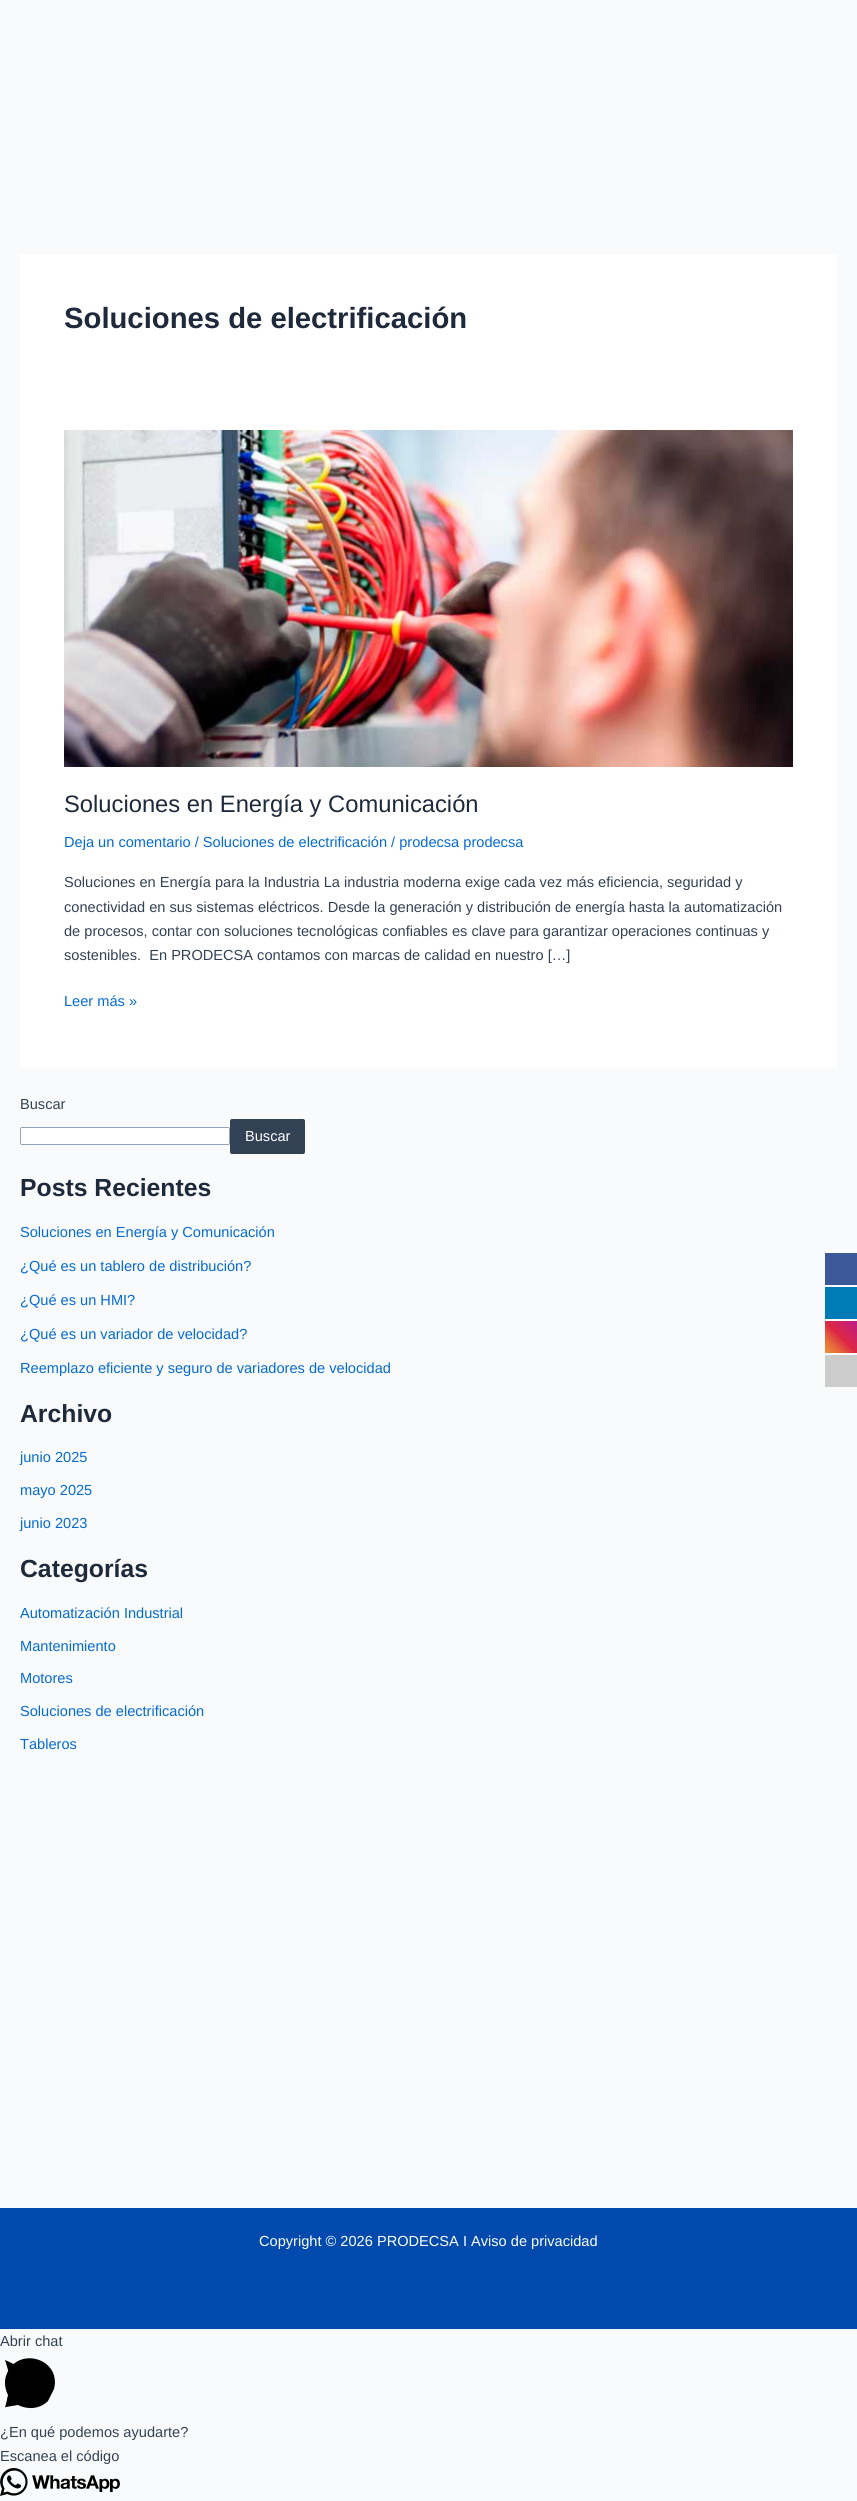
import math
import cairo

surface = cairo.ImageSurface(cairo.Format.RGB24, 857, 2501)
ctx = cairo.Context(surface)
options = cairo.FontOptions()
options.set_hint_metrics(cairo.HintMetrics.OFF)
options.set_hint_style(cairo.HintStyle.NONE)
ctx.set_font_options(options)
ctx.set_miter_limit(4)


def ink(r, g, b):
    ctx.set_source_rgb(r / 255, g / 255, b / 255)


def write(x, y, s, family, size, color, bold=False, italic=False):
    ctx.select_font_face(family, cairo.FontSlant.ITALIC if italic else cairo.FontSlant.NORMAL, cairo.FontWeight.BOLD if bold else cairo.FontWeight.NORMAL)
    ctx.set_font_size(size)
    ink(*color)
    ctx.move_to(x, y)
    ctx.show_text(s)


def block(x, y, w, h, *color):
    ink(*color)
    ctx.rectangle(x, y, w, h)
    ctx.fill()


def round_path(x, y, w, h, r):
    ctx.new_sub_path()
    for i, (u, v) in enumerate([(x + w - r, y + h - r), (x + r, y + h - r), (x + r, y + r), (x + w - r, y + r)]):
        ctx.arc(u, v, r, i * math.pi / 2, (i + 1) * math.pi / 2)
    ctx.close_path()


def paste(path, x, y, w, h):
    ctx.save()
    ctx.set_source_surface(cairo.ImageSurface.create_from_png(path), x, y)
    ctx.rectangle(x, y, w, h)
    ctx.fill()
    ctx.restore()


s1 = dict(family="Liberation Sans", size=29.25, color=(30, 41, 59), bold=True)
s2 = dict(family="Liberation Sans", size=23.75, color=(30, 41, 59))
s3 = dict(family="Liberation Sans", size=14.6, color=(4, 107, 210))
s4 = dict(family="Liberation Sans", size=14.6, color=(51, 65, 85))
s5 = dict(family="Liberation Sans", size=14.6, color=(255, 255, 255))
s6 = dict(family="Liberation Sans", size=24.75, color=(30, 41, 59), bold=True)

ink(249, 250, 251)
ctx.paint()
block(20, 254, 817, 814, 255, 255, 255)
write(64, 328, "Soluciones de electrificación", **s1)
paste("pic1.png", 64, 430, 729, 337)
write(64, 812, "Soluciones en Energía y Comunicación", **s2)
write(64, 847, "Deja un comentario / Soluciones de electrificación / prodecsa prodecsa", **s3)
write(64, 887, "Soluciones en Energía para la Industria La industria moderna exige cada vez más eficiencia, seguridad y", **s4)
write(64, 912, "conectividad en sus sistemas eléctricos. Desde la generación y distribución de energía hasta la automatización", **s4)
write(64, 936, "de procesos, contar con soluciones tecnológicas confiables es clave para garantizar operaciones continuas y", **s4)
write(64, 960, "sostenibles.  En PRODECSA contamos con marcas de calidad en nuestro […]", **s4)
write(64, 1006, "Leer más »", **s3)
write(20, 1109, "Buscar", **s4)
ink(255, 255, 255)
round_path(20.5, 1127.5, 209, 17, 1.5)
ctx.fill_preserve()
ink(148, 163, 184)
ctx.set_line_width(1)
ctx.stroke()
ink(51, 65, 85)
round_path(230, 1119, 75, 35, 2)
ctx.fill()
write(245, 1141, "Buscar", **s5)
write(20, 1196, "Posts Recientes", **s6)
write(20, 1237, "Soluciones en Energía y Comunicación", **s3)
write(20, 1271, "¿Qué es un tablero de distribución?", **s3)
write(20, 1305, "¿Qué es un HMI?", **s3)
write(20, 1339, "¿Qué es un variador de velocidad?", **s3)
write(20, 1373, "Reemplazo eficiente y seguro de variadores de velocidad", **s3)
write(20, 1422, "Archivo", **s6)
write(20, 1462, "junio 2025", **s3)
write(20, 1495, "mayo 2025", **s3)
write(20, 1528, "junio 2023", **s3)
write(20, 1577, "Categorías", **s6)
write(20, 1618, "Automatización Industrial", **s3)
write(20, 1651, "Mantenimiento", **s3)
write(20, 1683, "Motores", **s3)
write(20, 1716, "Soluciones de electrificación", **s3)
write(20, 1749, "Tableros", **s3)
block(0, 2208, 857, 121, 0, 74, 173)
write(259, 2246, "Copyright © 2026 PRODECSA I Aviso de privacidad", **s5)
block(825, 1253, 32, 32, 59, 89, 152)
block(825, 1287, 32, 32, 0, 123, 182)
gradient = cairo.LinearGradient(825, 1353, 857, 1321)
gradient.add_color_stop_rgba(0, 0.941, 0.58, 0.2, 1)
gradient.add_color_stop_rgba(0.25, 0.902, 0.408, 0.235, 1)
gradient.add_color_stop_rgba(0.5, 0.863, 0.153, 0.263, 1)
gradient.add_color_stop_rgba(0.75, 0.8, 0.137, 0.4, 1)
gradient.add_color_stop_rgba(1, 0.737, 0.094, 0.533, 1)
ctx.set_source(gradient)
ctx.rectangle(825, 1321, 32, 32)
ctx.fill()
block(825, 1355, 32, 32, 204, 204, 204)
write(0, 2346, "Abrir chat", **s4)
ink(0, 0, 0)
ctx.new_path()
ctx.move_to(25, 2383)
ctx.line_to(12, 2383)
ctx.line_to(5, 2360)
ctx.line_to(55, 2383)
ctx.line_to(13, 2403)
ctx.curve_to(5, 2407, 4, 2410, 6, 2404)
ctx.line_to(9, 2392)
ctx.fill()
ctx.new_path()
ctx.move_to(48, 2401)
ctx.curve_to(40, 2409, 28, 2410, 18, 2405)
ctx.line_to(6, 2407)
ctx.line_to(8, 2395)
ctx.curve_to(5, 2389, 4, 2382, 6, 2376)
ctx.curve_to(16, 2345, 62, 2358, 54, 2389)
ctx.fill()
write(0, 2437, "¿En qué podemos ayudarte?", **s4)
write(0, 2461, "Escanea el código", **s4)
paste("pic2.png", 0, 2468, 120, 28)
surface.write_to_png("screenshot.png")
